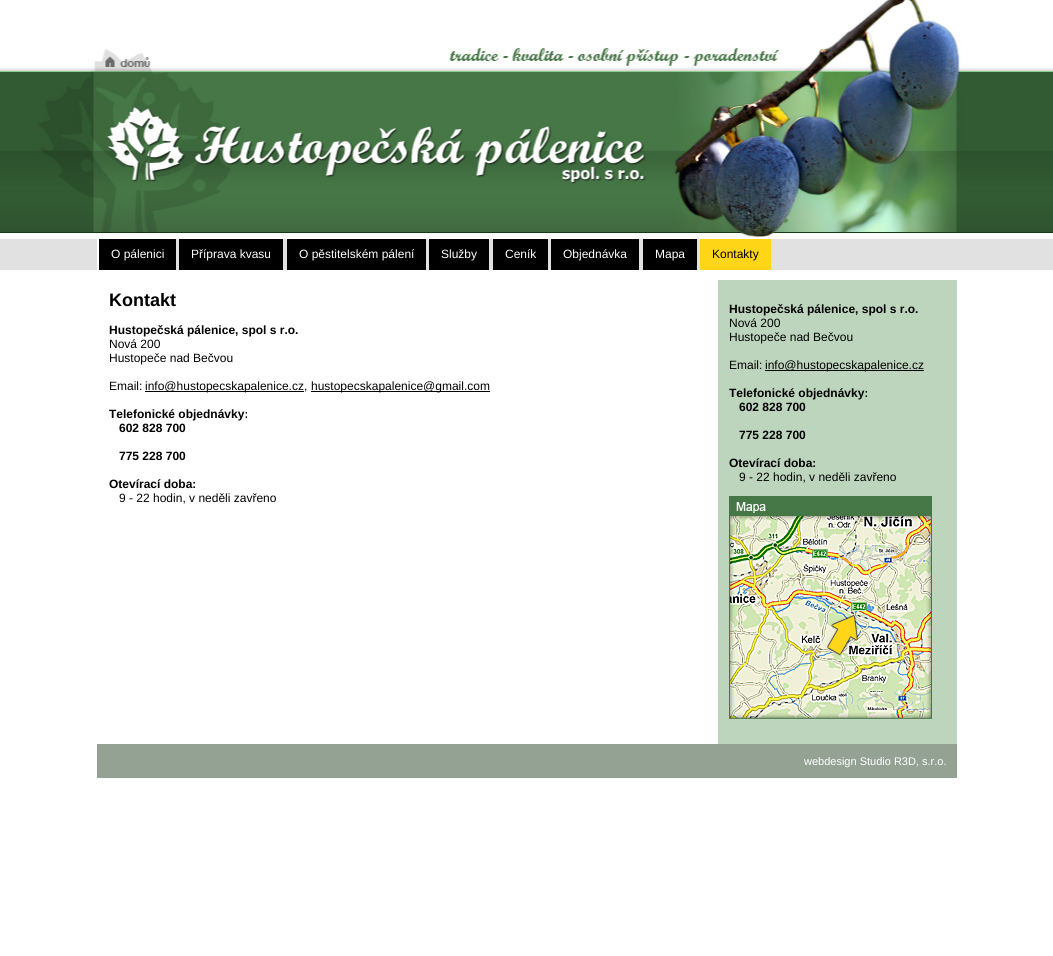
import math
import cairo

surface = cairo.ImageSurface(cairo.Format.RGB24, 1053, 956)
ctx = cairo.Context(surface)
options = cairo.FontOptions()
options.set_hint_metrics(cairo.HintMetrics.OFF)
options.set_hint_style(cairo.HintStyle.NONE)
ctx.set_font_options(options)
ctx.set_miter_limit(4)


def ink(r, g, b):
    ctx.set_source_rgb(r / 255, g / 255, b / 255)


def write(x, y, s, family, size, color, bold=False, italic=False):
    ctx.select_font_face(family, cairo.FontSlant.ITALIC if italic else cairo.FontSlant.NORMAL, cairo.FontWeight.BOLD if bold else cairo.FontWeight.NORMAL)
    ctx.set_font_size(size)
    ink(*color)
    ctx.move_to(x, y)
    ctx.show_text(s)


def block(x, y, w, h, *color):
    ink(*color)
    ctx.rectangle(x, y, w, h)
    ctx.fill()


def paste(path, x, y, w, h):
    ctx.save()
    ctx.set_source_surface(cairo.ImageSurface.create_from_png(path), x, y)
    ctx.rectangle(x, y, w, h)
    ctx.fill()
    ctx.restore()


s1 = dict(family="Liberation Sans", size=12, color=(255, 255, 255))
s2 = dict(family="Liberation Sans", size=12, color=(0, 0, 0))
s3 = dict(family="Liberation Sans", size=18, color=(0, 0, 0), bold=True)
s4 = dict(family="Liberation Sans", size=12, color=(0, 0, 0), bold=True)
s5 = dict(family="Liberation Sans", size=11, color=(255, 255, 255))

ink(255, 255, 255)
ctx.paint()
paste("pic1.png", 0, 0, 1053, 270)
block(97, 239, 2, 31, 255, 255, 255)
block(99, 239, 77, 31, 0, 0, 0)
write(111, 258, "O pálenici", **s1)
block(179, 239, 104, 31, 0, 0, 0)
write(191, 258, "Příprava kvasu", **s1)
block(287, 239, 139, 31, 0, 0, 0)
write(299, 258, "O pěstitelském pálení", **s1)
block(429, 239, 60, 31, 0, 0, 0)
write(441, 258, "Služby", **s1)
block(493, 239, 55, 31, 0, 0, 0)
write(505, 258, "Ceník", **s1)
block(551, 239, 88, 31, 0, 0, 0)
write(563, 258, "Objednávka", **s1)
block(643, 239, 54, 31, 0, 0, 0)
write(655, 258, "Mapa", **s1)
block(700, 239, 71, 31, 255, 214, 23)
write(712, 258, "Kontakty", **s2)
block(718, 280, 239, 464, 189, 213, 189)
write(109, 306, "Kontakt", **s3)
write(109, 334, "Hustopečská pálenice, spol s r.o.", **s4)
write(109, 348, "Nová 200", **s2)
write(109, 362, "Hustopeče nad Bečvou", **s2)
write(109, 390, "Email:", **s2)
block(145, 391, 159, 1, 0, 0, 0)
write(145, 390, "info@hustopecskapalenice.cz,", **s2)
block(311, 391, 179, 1, 0, 0, 0)
write(311, 390, "hustopecskapalenice@gmail.com", **s2)
write(109, 418, "Telefonické objednávky:", **s4)
write(119, 432, "602 828 700", **s4)
write(119, 460, "775 228 700", **s4)
write(109, 488, "Otevírací doba:", **s4)
write(119, 502, "9 - 22 hodin, v neděli zavřeno", **s2)
write(729, 313, "Hustopečská pálenice, spol s r.o.", **s4)
write(729, 327, "Nová 200", **s2)
write(729, 341, "Hustopeče nad Bečvou", **s2)
write(729, 369, "Email:", **s2)
block(765, 370, 159, 1, 0, 0, 0)
write(765, 369, "info@hustopecskapalenice.cz", **s2)
write(729, 397, "Telefonické objednávky:", **s4)
write(739, 411, "602 828 700", **s4)
write(739, 439, "775 228 700", **s4)
write(729, 467, "Otevírací doba:", **s4)
write(739, 481, "9 - 22 hodin, v neděli zavřeno", **s2)
paste("pic2.png", 729, 496, 203, 223)
block(97, 744, 860, 34, 148, 162, 148)
write(804, 765, "webdesign Studio R3D, s.r.o.", **s5)
surface.write_to_png("screenshot.png")
